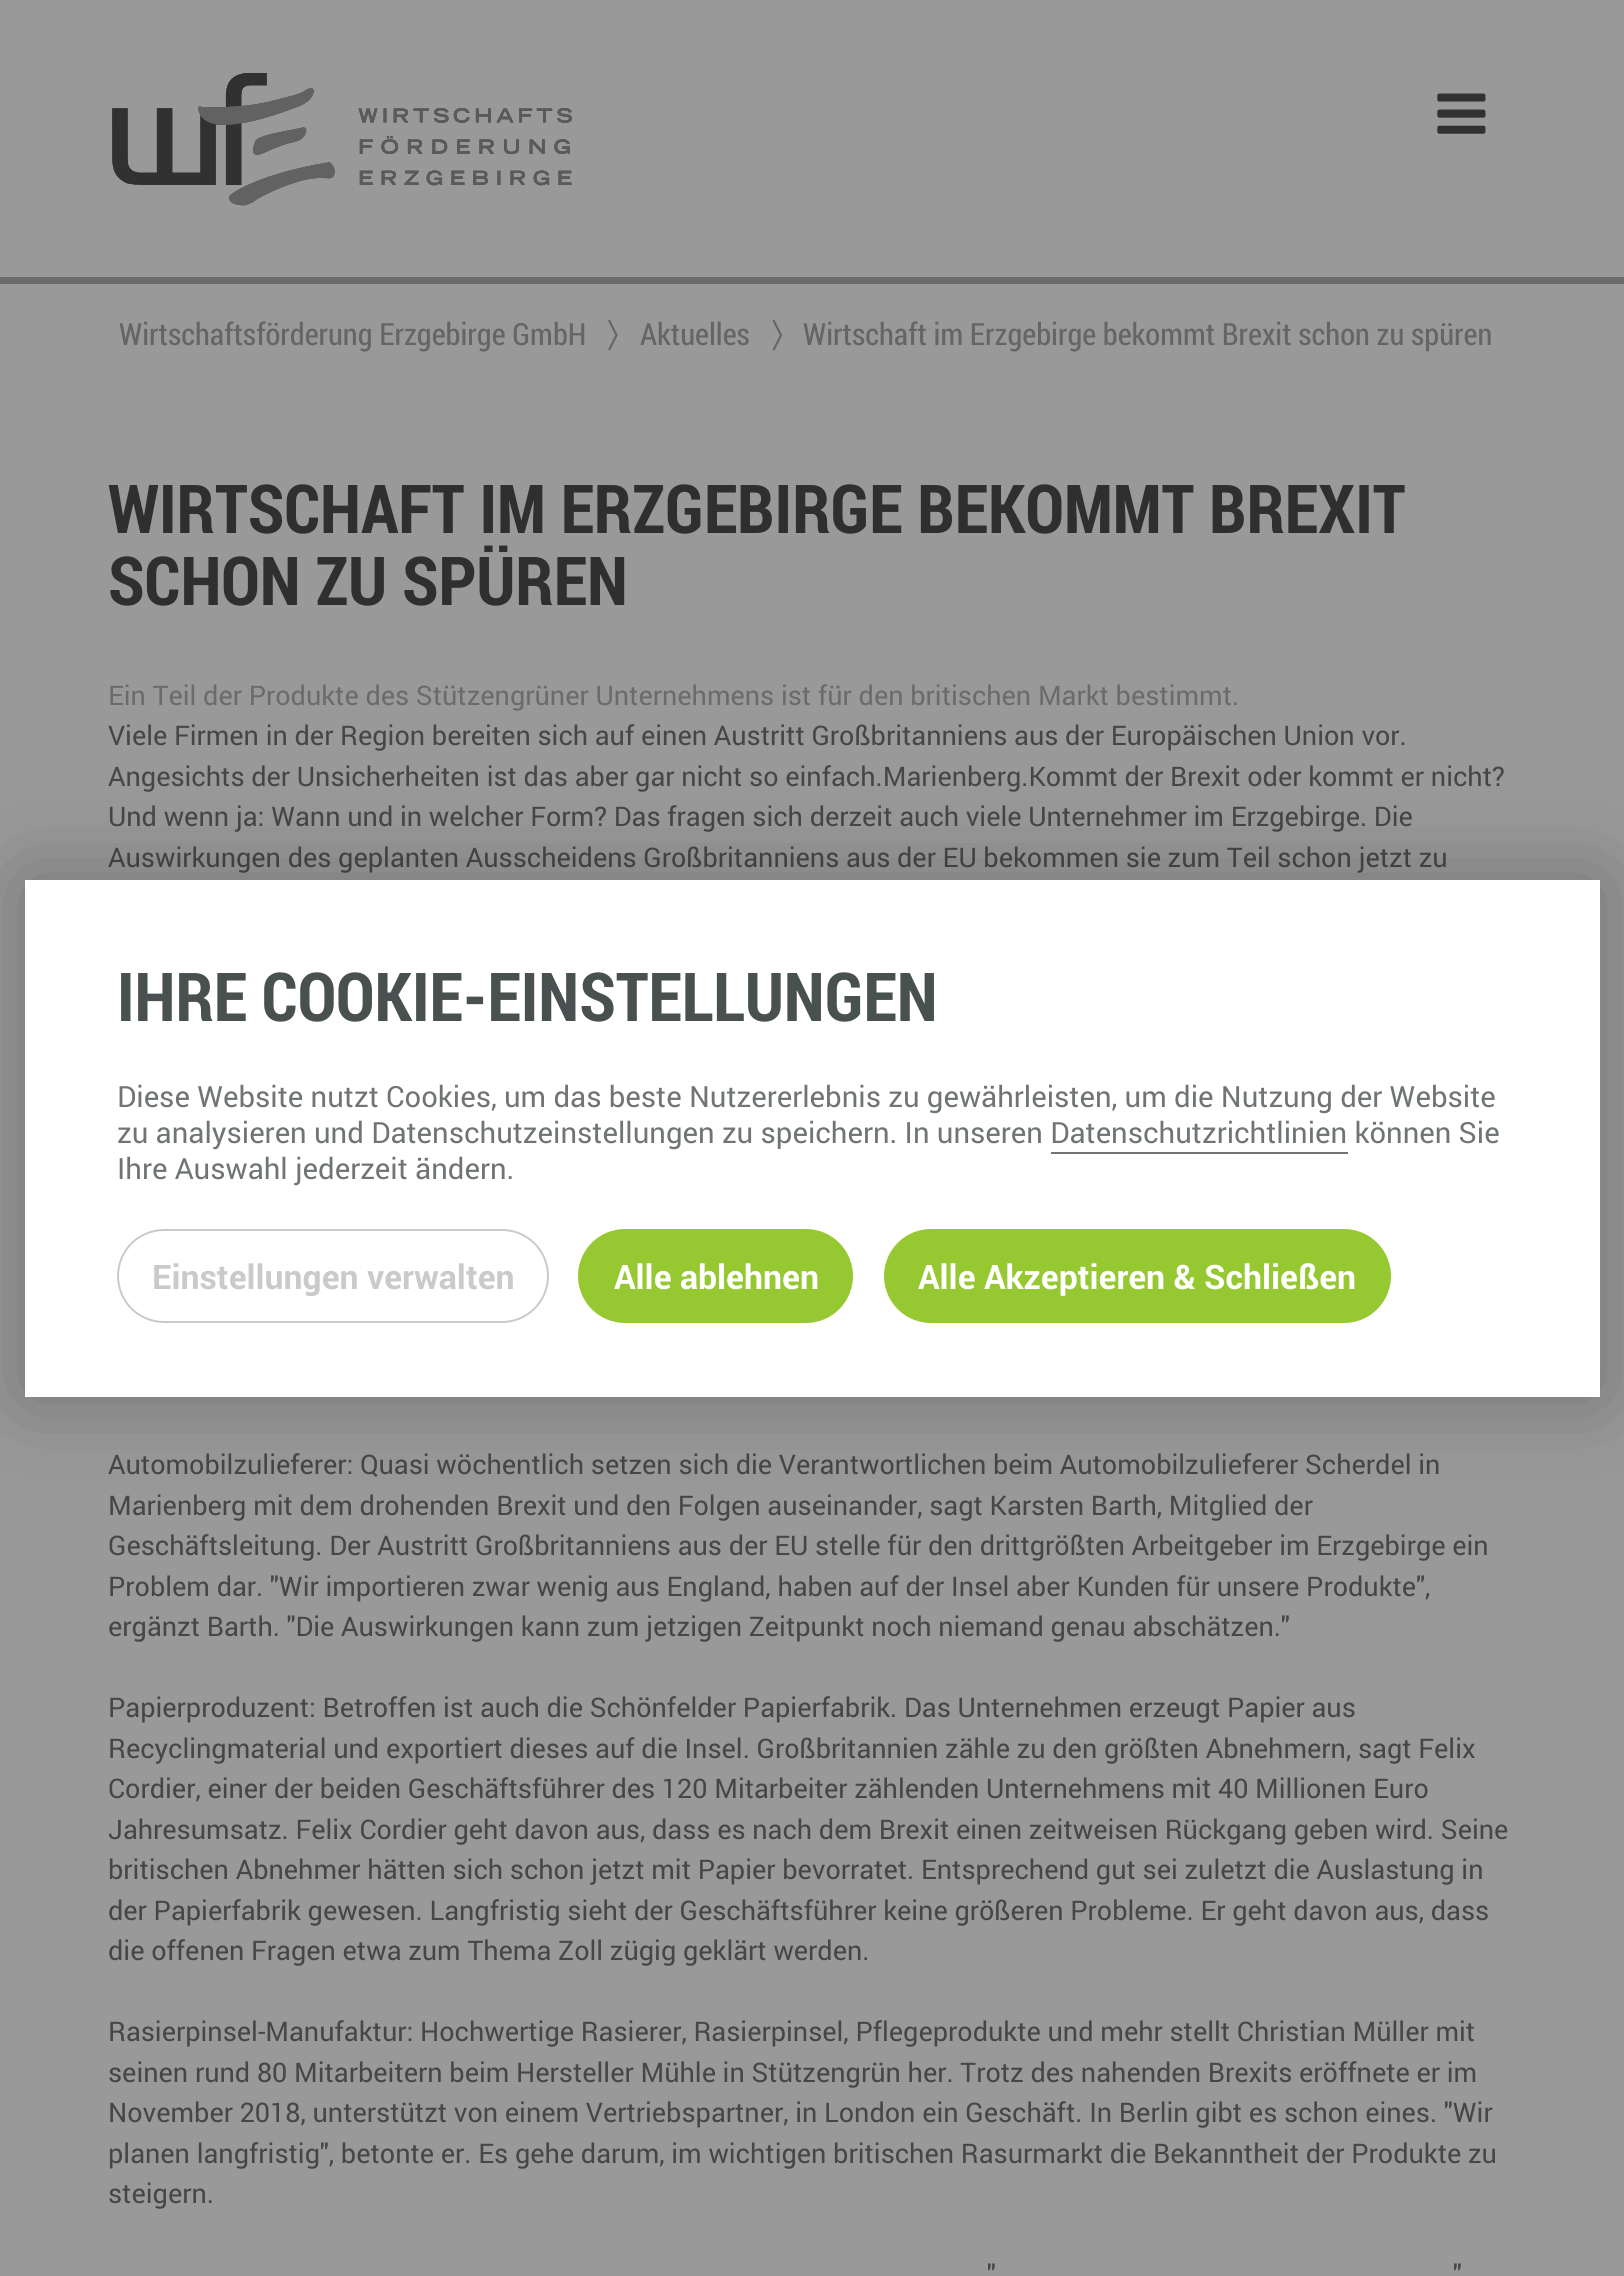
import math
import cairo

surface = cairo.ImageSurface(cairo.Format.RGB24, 1624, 2276)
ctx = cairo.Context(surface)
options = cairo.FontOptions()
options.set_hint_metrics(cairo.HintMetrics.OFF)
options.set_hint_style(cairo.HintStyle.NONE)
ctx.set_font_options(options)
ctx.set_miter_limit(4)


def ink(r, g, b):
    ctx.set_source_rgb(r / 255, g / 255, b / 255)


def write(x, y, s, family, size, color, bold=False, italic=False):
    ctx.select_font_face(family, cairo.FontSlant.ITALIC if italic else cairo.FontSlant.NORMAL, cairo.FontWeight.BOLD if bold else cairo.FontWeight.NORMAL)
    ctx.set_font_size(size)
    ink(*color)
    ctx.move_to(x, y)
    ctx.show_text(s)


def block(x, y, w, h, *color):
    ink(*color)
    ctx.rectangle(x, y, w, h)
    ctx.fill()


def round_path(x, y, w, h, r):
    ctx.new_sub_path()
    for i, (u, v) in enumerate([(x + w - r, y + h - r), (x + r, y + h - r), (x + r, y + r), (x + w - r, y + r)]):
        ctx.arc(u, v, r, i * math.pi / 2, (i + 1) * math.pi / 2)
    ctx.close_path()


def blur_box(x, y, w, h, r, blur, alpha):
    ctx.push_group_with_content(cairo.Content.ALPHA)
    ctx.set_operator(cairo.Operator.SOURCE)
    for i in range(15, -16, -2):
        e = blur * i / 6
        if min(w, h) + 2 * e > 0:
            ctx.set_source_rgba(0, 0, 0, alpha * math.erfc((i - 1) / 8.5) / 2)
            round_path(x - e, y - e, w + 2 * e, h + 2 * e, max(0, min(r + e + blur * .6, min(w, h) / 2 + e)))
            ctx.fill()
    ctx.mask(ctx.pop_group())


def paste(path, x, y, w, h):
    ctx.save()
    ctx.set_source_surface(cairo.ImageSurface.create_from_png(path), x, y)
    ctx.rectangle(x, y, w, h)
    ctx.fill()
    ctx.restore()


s1 = dict(family="Roboto Condensed", size=30.6, color=(101, 101, 101))
s2 = dict(family="Roboto Condensed", size=67.5, color=(47, 47, 47), bold=True)
s3 = dict(family="Roboto", size=27, color=(107, 107, 107))
s4 = dict(family="Roboto", size=27, color=(70, 70, 70))
s5 = dict(family="Roboto Condensed", size=67.5, color=(72, 81, 79), bold=True)
s6 = dict(family="Roboto", size=29.25, color=(112, 117, 116))
s7 = dict(family="Roboto", size=33.75, color=(201, 203, 203), bold=True)
s8 = dict(family="Roboto", size=33.75, color=(255, 255, 255), bold=True)

ink(153, 153, 153)
ctx.paint()
paste("pic1.png", 112, 73, 460, 133)
paste("pic2.png", 1437, 93, 49, 41)
block(0, 277, 1624, 7, 107, 107, 107)
write(119, 345, "Wirtschaftsförderung Erzgebirge GmbH", **s1)
paste("pic3.png", 608, 319, 10, 32)
write(640, 345, "Aktuelles", **s1)
paste("pic4.png", 772, 319, 10, 32)
write(803, 345, "Wirtschaft im Erzgebirge bekommt Brexit schon zu spüren", **s1)
write(108, 533, "WIRTSCHAFT IM ERZGEBIRGE BEKOMMT BREXIT", **s2)
write(108, 605, "SCHON ZU SPÜREN", **s2)
write(108, 705, "Ein Teil der Produkte des Stützengrüner Unternehmens ist für den britischen Markt bestimmt.", **s3)
write(108, 745, "Viele Firmen in der Region bereiten sich auf einen Austritt Großbritanniens aus der Europäischen Union vor.", **s4)
write(108, 786, "Angesichts der Unsicherheiten ist das aber gar nicht so einfach.Marienberg.Kommt der Brexit oder kommt er nicht?", **s4)
write(108, 826, "Und wenn ja: Wann und in welcher Form? Das fragen sich derzeit auch viele Unternehmer im Erzgebirge. Die", **s4)
write(108, 867, "Auswirkungen des geplanten Ausscheidens Großbritanniens aus der EU bekommen sie zum Teil schon jetzt zu", **s4)
write(108, 1474, "Automobilzulieferer: Quasi wöchentlich setzen sich die Verantwortlichen beim Automobilzulieferer Scherdel in", **s4)
write(108, 1515, "Marienberg mit dem drohenden Brexit und den Folgen auseinander, sagt Karsten Barth, Mitglied der", **s4)
write(108, 1555, "Geschäftsleitung. Der Austritt Großbritanniens aus der EU stelle für den drittgrößten Arbeitgeber im Erzgebirge ein", **s4)
write(108, 1596, "Problem dar. \"Wir importieren zwar wenig aus England, haben auf der Insel aber Kunden für unsere Produkte\",", **s4)
write(108, 1636, "ergänzt Barth. \"Die Auswirkungen kann zum jetzigen Zeitpunkt noch niemand genau abschätzen.\"", **s4)
write(108, 1717, "Papierproduzent: Betroffen ist auch die Schönfelder Papierfabrik. Das Unternehmen erzeugt Papier aus", **s4)
write(108, 1758, "Recyclingmaterial und exportiert dieses auf die Insel. Großbritannien zähle zu den größten Abnehmern, sagt Felix", **s4)
write(108, 1798, "Cordier, einer der beiden Geschäftsführer des 120 Mitarbeiter zählenden Unternehmens mit 40 Millionen Euro", **s4)
write(108, 1839, "Jahresumsatz. Felix Cordier geht davon aus, dass es nach dem Brexit einen zeitweisen Rückgang geben wird. Seine", **s4)
write(108, 1879, "britischen Abnehmer hätten sich schon jetzt mit Papier bevorratet. Entsprechend gut sei zuletzt die Auslastung in", **s4)
write(108, 1920, "der Papierfabrik gewesen. Langfristig sieht der Geschäftsführer keine größeren Probleme. Er geht davon aus, dass", **s4)
write(108, 1960, "die offenen Fragen etwa zum Thema Zoll zügig geklärt werden.", **s4)
write(108, 2041, "Rasierpinsel-Manufaktur: Hochwertige Rasierer, Rasierpinsel, Pflegeprodukte und mehr stellt Christian Müller mit", **s4)
write(108, 2082, "seinen rund 80 Mitarbeitern beim Hersteller Mühle in Stützengrün her. Trotz des nahenden Brexits eröffnete er im", **s4)
write(108, 2122, "November 2018, unterstützt von einem Vertriebspartner, in London ein Geschäft. In Berlin gibt es schon eines. \"Wir", **s4)
write(108, 2163, "planen langfristig\", betonte er. Es gehe darum, im wichtigen britischen Rasurmarkt die Bekanntheit der Produkte zu", **s4)
write(108, 2203, "steigern.", **s4)
write(987, 2284, "\"", **s4)
write(1453, 2284, "\"", **s4)
ink(0, 0, 0)
blur_box(25, 880, 1575, 517, 0, 45, 0.25)
block(25, 880, 1575, 517, 255, 255, 255)
write(117, 1021, "IHRE COOKIE-EINSTELLUNGEN", **s5)
write(117, 1107, "Diese Website nutzt Cookies, um das beste Nutzererlebnis zu gewährleisten, um die Nutzung der Website", **s6)
write(117, 1143, "zu analysieren und Datenschutzeinstellungen zu speichern. In unseren Datenschutzrichtlinien können Sie", **s6)
block(1051, 1152, 297, 2, 112, 117, 116)
write(117, 1179, "Ihre Auswahl jederzeit ändern.", **s6)
round_path(118, 1230, 430, 92, 46)
ink(201, 203, 203)
ctx.stroke()
write(152, 1289, "Einstellungen verwalten", **s7)
ink(150, 200, 50)
round_path(579, 1230, 273, 92, 46)
ctx.fill_preserve()
ctx.stroke()
write(614, 1289, "Alle ablehnen", **s8)
ink(150, 200, 50)
round_path(885, 1230, 505, 92, 46)
ctx.fill_preserve()
ctx.stroke()
write(918, 1289, "Alle Akzeptieren & Schließen", **s8)
surface.write_to_png("screenshot.png")
